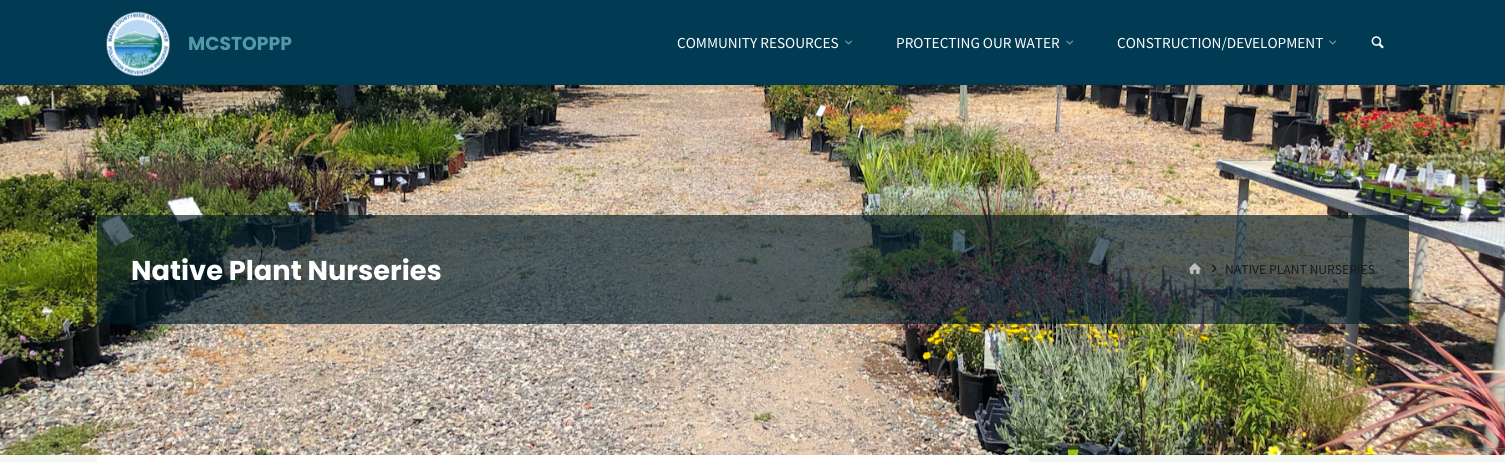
import math
import cairo

surface = cairo.ImageSurface(cairo.Format.RGB24, 1505, 462)
ctx = cairo.Context(surface)
options = cairo.FontOptions()
options.set_hint_metrics(cairo.HintMetrics.OFF)
options.set_hint_style(cairo.HintStyle.NONE)
ctx.set_font_options(options)
ctx.set_miter_limit(4)


def ink(r, g, b):
    ctx.set_source_rgb(r / 255, g / 255, b / 255)


def write(x, y, s, family, size, color, bold=False, italic=False):
    ctx.select_font_face(family, cairo.FontSlant.ITALIC if italic else cairo.FontSlant.NORMAL, cairo.FontWeight.BOLD if bold else cairo.FontWeight.NORMAL)
    ctx.set_font_size(size)
    ink(*color)
    ctx.move_to(x, y)
    ctx.show_text(s)


def block(x, y, w, h, *color):
    ink(*color)
    ctx.rectangle(x, y, w, h)
    ctx.fill()


def round_path(x, y, w, h, r):
    ctx.new_sub_path()
    for i, (u, v) in enumerate([(x + w - r, y + h - r), (x + r, y + h - r), (x + r, y + r), (x + w - r, y + r)]):
        ctx.arc(u, v, r, i * math.pi / 2, (i + 1) * math.pi / 2)
    ctx.close_path()


def blur_box(x, y, w, h, r, blur, alpha):
    ctx.push_group_with_content(cairo.Content.ALPHA)
    ctx.set_operator(cairo.Operator.SOURCE)
    for i in range(15, -16, -2):
        e = blur * i / 6
        if min(w, h) + 2 * e > 0:
            ctx.set_source_rgba(0, 0, 0, alpha * math.erfc((i - 1) / 8.5) / 2)
            round_path(x - e, y - e, w + 2 * e, h + 2 * e, max(0, min(r + e + blur * .6, min(w, h) / 2 + e)))
            ctx.fill()
    ctx.mask(ctx.pop_group())


def paste(path, x, y, w, h):
    ctx.save()
    ctx.set_source_surface(cairo.ImageSurface.create_from_png(path), x, y)
    ctx.rectangle(x, y, w, h)
    ctx.fill()
    ctx.restore()


s1 = dict(family="Poppins", size=18.75, color=(82, 154, 165), bold=True)
s2 = dict(family="Source Sans Pro", size=15.25, color=(255, 255, 255))
s3 = dict(family="Poppins", size=27.25, color=(255, 255, 255), bold=True)
s4 = dict(family="Source Sans Pro", size=13.6, color=(25, 25, 25))

ink(243, 247, 245)
ctx.paint()
block(0, 0, 1505, 84, 0, 58, 83)
block(0, 84, 1505, 1, 0, 55, 79)
paste("pic1.png", 106, 11, 64, 66)
write(188, 50, "MCSTOPPP", **s1)
write(677, 48, "COMMUNITY RESOURCES", **s2)
paste("pic2.png", 845, 40, 7, 5)
write(896, 48, "PROTECTING OUR WATER", **s2)
paste("pic2.png", 1066, 40, 7, 5)
write(1117, 48, "CONSTRUCTION/DEVELOPMENT", **s2)
paste("pic2.png", 1329, 40, 7, 5)
paste("pic3.png", 1371, 36, 13, 13)
paste("pic4.png", 0, 85, 1505, 370)
ctx.set_source_rgba(0, 0.114, 0.161, 0.65)
ctx.rectangle(97, 215, 1312, 109)
ctx.fill()
write(131, 280, "Native Plant Nurseries", **s3)
paste("pic5.png", 1188, 263, 13, 11)
paste("pic6.png", 1212, 264, 5, 9)
write(1225, 274, "NATIVE PLANT NURSERIES", **s4)
block(97, 455, 932, 7, 255, 255, 255)
ctx.save()
ctx.set_fill_rule(cairo.FillRule.EVEN_ODD)
ctx.new_path()
ctx.move_to(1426, 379)
ctx.line_to(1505, 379)
ctx.line_to(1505, 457)
ctx.line_to(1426, 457)
ctx.close_path()
ctx.move_to(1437, 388)
ctx.line_to(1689, 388)
ctx.curve_to(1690, 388, 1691, 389, 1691, 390)
ctx.line_to(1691, 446)
ctx.curve_to(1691, 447, 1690, 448, 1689, 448)
ctx.line_to(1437, 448)
ctx.curve_to(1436, 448, 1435, 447, 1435, 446)
ctx.line_to(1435, 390)
ctx.curve_to(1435, 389, 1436, 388, 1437, 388)
ctx.close_path()
ctx.clip()
ink(128, 128, 128)
blur_box(1435, 388, 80, 60, 2, 2.5, 1)
ctx.restore()
surface.write_to_png("screenshot.png")
